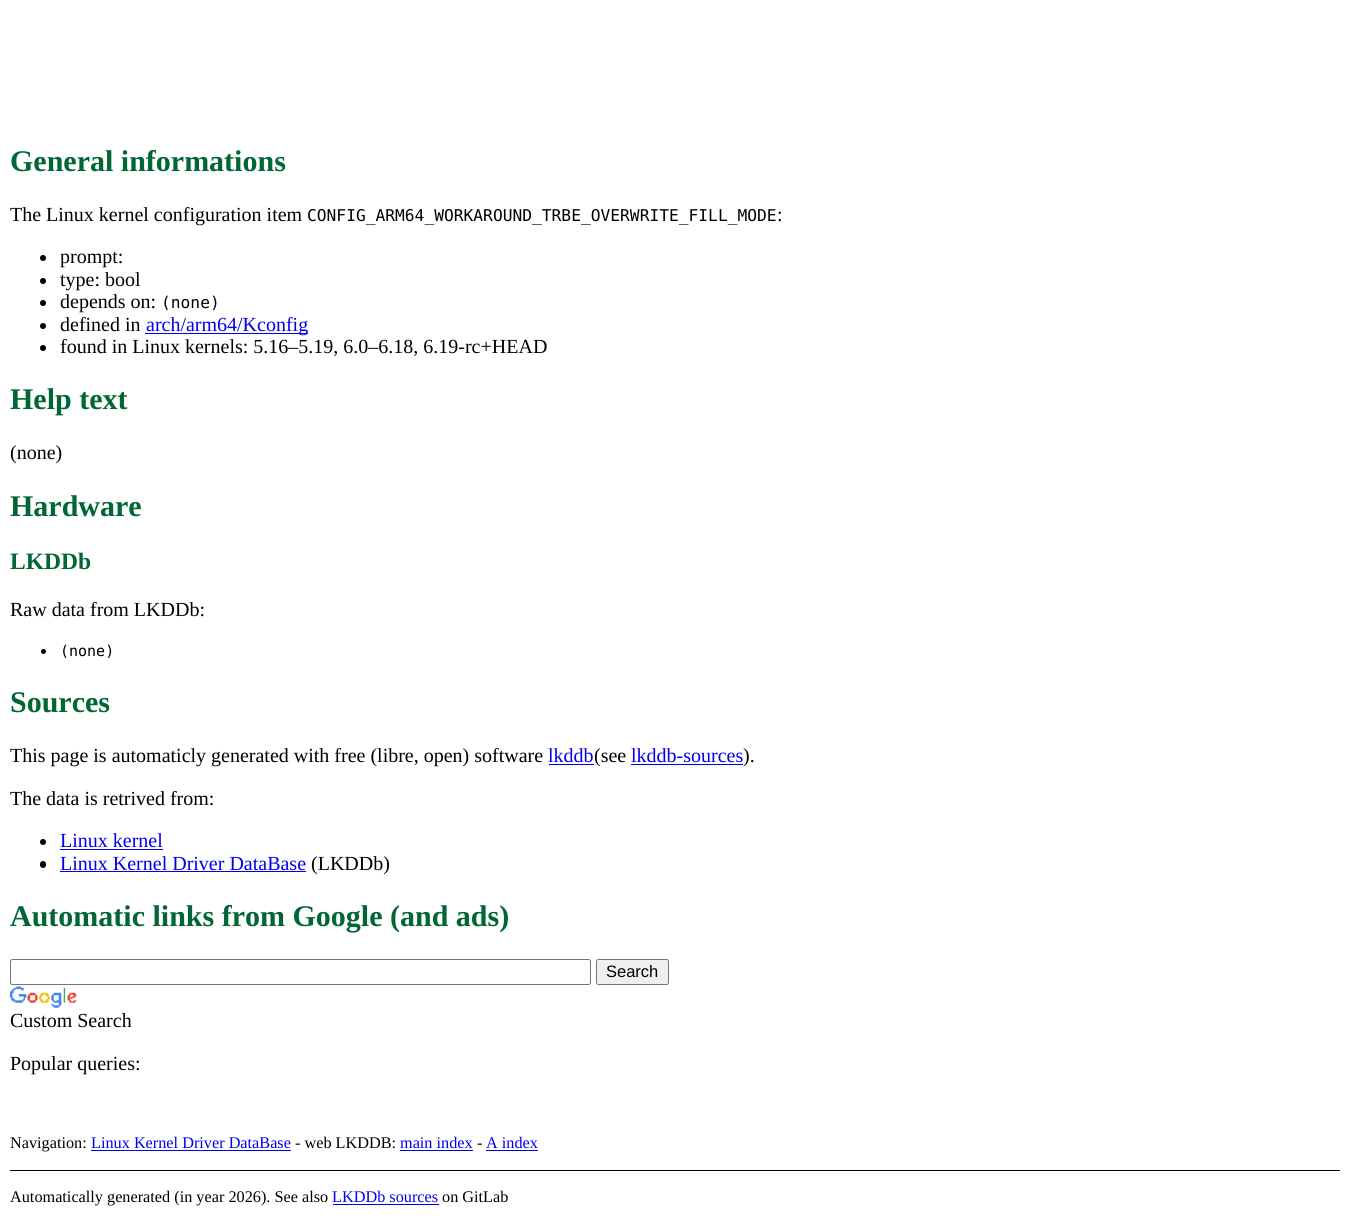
import math
import cairo

surface = cairo.ImageSurface(cairo.Format.RGB24, 1349, 1223)
ctx = cairo.Context(surface)
options = cairo.FontOptions()
options.set_hint_metrics(cairo.HintMetrics.OFF)
options.set_hint_style(cairo.HintStyle.NONE)
ctx.set_font_options(options)
ctx.set_miter_limit(4)


def ink(r, g, b):
    ctx.set_source_rgb(r / 255, g / 255, b / 255)


def write(x, y, s, family, size, color, bold=False, italic=False):
    ctx.select_font_face(family, cairo.FontSlant.ITALIC if italic else cairo.FontSlant.NORMAL, cairo.FontWeight.BOLD if bold else cairo.FontWeight.NORMAL)
    ctx.set_font_size(size)
    ink(*color)
    ctx.move_to(x, y)
    ctx.show_text(s)


def block(x, y, w, h, *color):
    ink(*color)
    ctx.rectangle(x, y, w, h)
    ctx.fill()


def round_path(x, y, w, h, r):
    ctx.new_sub_path()
    for i, (u, v) in enumerate([(x + w - r, y + h - r), (x + r, y + h - r), (x + r, y + r), (x + w - r, y + r)]):
        ctx.arc(u, v, r, i * math.pi / 2, (i + 1) * math.pi / 2)
    ctx.close_path()


def paste(path, x, y, w, h):
    ctx.save()
    ctx.set_source_surface(cairo.ImageSurface.create_from_png(path), x, y)
    ctx.rectangle(x, y, w, h)
    ctx.fill()
    ctx.restore()


s1 = dict(family="Liberation Serif", size=30, color=(0, 102, 51), bold=True)
s2 = dict(family="Liberation Serif", size=20, color=(0, 0, 0))
s3 = dict(family="DejaVu Sans Mono", size=16.25, color=(0, 0, 0))
s4 = dict(family="Liberation Serif", size=20, color=(0, 0, 238))
s5 = dict(family="Liberation Serif", size=23.5, color=(0, 102, 51), bold=True)
s6 = dict(family="DejaVu Sans Mono", size=15, color=(0, 0, 0))
s7 = dict(family="Liberation Sans", size=16.5, color=(0, 0, 0))
s8 = dict(family="Liberation Serif", size=16.25, color=(0, 0, 0))
s9 = dict(family="Liberation Serif", size=16.25, color=(0, 0, 238))

ink(255, 255, 255)
ctx.paint()
write(10, 171, "General informations", **s1)
write(10, 221, "The Linux kernel configuration item", **s2)
write(307, 221, "CONFIG_ARM64_WORKAROUND_TRBE_OVERWRITE_FILL_MODE", **s3)
write(777, 221, ":", **s2)
ctx.new_path()
ctx.arc(43, 258, 3, 0, 2 * math.pi)
ctx.fill()
write(60, 263, "prompt:", **s2)
ctx.new_path()
ctx.arc(43, 281, 3, 0, 2 * math.pi)
ctx.fill()
write(60, 286, "type: bool", **s2)
ctx.new_path()
ctx.arc(43, 303, 3, 0, 2 * math.pi)
ctx.fill()
write(60, 308, "depends on:", **s2)
write(161, 308, "(none)", **s3)
ctx.new_path()
ctx.arc(43, 326, 3, 0, 2 * math.pi)
ctx.fill()
write(60, 331, "defined in", **s2)
block(145, 333, 163, 1, 0, 0, 238)
write(146, 331, "arch/arm64/Kconfig", **s4)
ink(0, 0, 0)
ctx.new_path()
ctx.arc(43, 348, 3, 0, 2 * math.pi)
ctx.fill()
write(60, 353, "found in Linux kernels: 5.16–5.19, 6.0–6.18, 6.19-rc+HEAD", **s2)
write(10, 409, "Help text", **s1)
write(10, 459, "(none)", **s2)
write(10, 516, "Hardware", **s1)
write(10, 569, "LKDDb", **s5)
write(10, 616, "Raw data from LKDDb:", **s2)
ctx.new_path()
ctx.arc(43.5, 651.5, 2.5, 0, 2 * math.pi)
ctx.fill()
write(60, 656, "(none)", **s6)
write(10, 712, "Sources", **s1)
write(10, 762, "This page is automaticly generated with free (libre, open) software", **s2)
write(548, 762, "lkddb", **s4)
block(549, 764, 45, 1, 0, 0, 238)
write(594, 762, "(see", **s2)
write(631, 762, "lkddb-sources", **s4)
block(631, 764, 112, 1, 0, 0, 238)
write(743, 762, ").", **s2)
write(10, 805, "The data is retrived from:", **s2)
ctx.new_path()
ctx.arc(43, 842, 3, 0, 2 * math.pi)
ctx.fill()
write(60, 847, "Linux kernel", **s4)
block(60, 849, 103, 1, 0, 0, 238)
ink(0, 0, 0)
round_path(40, 861, 6, 7, 3)
ctx.fill()
write(60, 870, "Linux Kernel Driver DataBase", **s4)
block(60, 871, 246, 1, 0, 0, 238)
write(311, 870, "(LKDDb)", **s2)
write(10, 926, "Automatic links from Google (and ads)", **s1)
round_path(10.5, 959.5, 580, 25, 2)
ink(118, 118, 118)
ctx.set_line_width(1)
ctx.stroke()
ink(239, 239, 239)
round_path(596.5, 959.5, 72, 25, 2)
ctx.fill_preserve()
ink(118, 118, 118)
ctx.stroke()
write(606, 977, "Search", **s7)
paste("pic1.png", 10, 986, 67, 22)
write(10, 1027, "Custom Search", **s2)
write(10, 1070, "Popular queries:", **s2)
write(10, 1148, "Navigation:", **s8)
write(91, 1148, "Linux Kernel Driver DataBase", **s9)
block(91, 1150, 200, 1, 0, 0, 238)
write(295, 1148, "- web LKDDB:", **s8)
write(400, 1148, "main index", **s9)
block(400, 1150, 73, 1, 0, 0, 238)
write(477, 1148, "-", **s8)
write(486, 1148, "A index", **s9)
block(486, 1150, 52, 1, 0, 0, 238)
block(10, 1170, 1330, 1, 0, 0, 0)
write(10, 1202, "Automatically generated (in year 2026). See also", **s8)
write(332, 1202, "LKDDb sources", **s9)
block(333, 1204, 106, 1, 0, 0, 238)
write(442, 1202, "on GitLab", **s8)
surface.write_to_png("screenshot.png")
